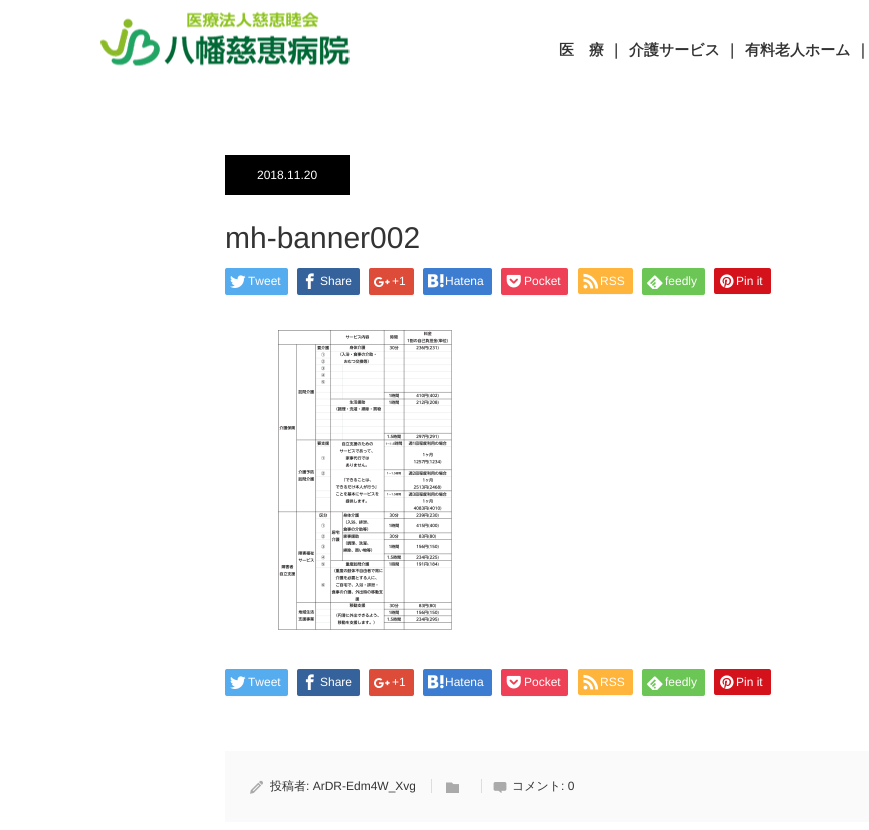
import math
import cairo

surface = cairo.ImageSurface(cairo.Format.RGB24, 869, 830)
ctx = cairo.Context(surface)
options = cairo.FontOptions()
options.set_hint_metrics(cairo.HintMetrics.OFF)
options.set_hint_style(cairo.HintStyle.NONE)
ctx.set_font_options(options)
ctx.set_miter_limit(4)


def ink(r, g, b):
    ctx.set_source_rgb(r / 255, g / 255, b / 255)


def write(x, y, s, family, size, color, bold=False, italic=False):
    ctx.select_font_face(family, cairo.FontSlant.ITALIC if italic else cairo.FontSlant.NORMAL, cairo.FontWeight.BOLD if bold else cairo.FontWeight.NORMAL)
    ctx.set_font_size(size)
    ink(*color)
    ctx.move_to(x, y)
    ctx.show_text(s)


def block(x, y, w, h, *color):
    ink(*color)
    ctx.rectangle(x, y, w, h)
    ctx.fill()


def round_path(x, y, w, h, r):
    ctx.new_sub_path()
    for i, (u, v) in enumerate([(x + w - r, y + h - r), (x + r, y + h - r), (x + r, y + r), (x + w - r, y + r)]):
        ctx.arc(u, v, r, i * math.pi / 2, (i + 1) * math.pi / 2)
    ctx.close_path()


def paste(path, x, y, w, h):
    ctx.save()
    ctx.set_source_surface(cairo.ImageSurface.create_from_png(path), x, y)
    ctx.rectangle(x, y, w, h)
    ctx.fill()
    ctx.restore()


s1 = dict(family="WenQuanYi Zen Hei", size=15, color=(51, 51, 51), bold=True)
s2 = dict(family="Liberation Sans", size=12, color=(255, 255, 255))
s3 = dict(family="Liberation Sans", size=30, color=(51, 51, 51))
s4 = dict(family="WenQuanYi Zen Hei Medium", size=12, color=(51, 51, 51))
s5 = dict(family="Liberation Sans", size=12, color=(51, 51, 51))

ink(255, 255, 255)
ctx.paint()
paste("pic1.png", 100, 11, 250, 55)
write(559, 55, "医　療 ｜", **s1)
write(629, 55, "介護サービス ｜", **s1)
write(745, 55, "有料老人ホーム ｜", **s1)
block(225, 155, 125, 40, 0, 0, 0)
write(257, 179, "2018.11.20", **s2)
write(225, 248, "mh-banner002", **s3)
ink(247, 247, 247)
ctx.new_path()
ctx.move_to(225, 293)
ctx.curve_to(225, 299, 233, 296, 237, 296)
ctx.line_to(276, 296)
ctx.curve_to(280, 296, 288, 299, 288, 293)
ctx.line_to(287, 295)
ctx.line_to(237, 295)
ctx.curve_to(233, 295, 225, 297, 225, 293)
ctx.close_path()
ctx.fill()
ink(85, 172, 238)
round_path(225, 268, 63, 27, 2)
ctx.fill()
paste("pic2.png", 230, 275, 16, 13)
write(248, 285, "Tweet", **s2)
ink(247, 247, 247)
ctx.new_path()
ctx.move_to(297, 293)
ctx.curve_to(297, 299, 305, 296, 309, 296)
ctx.line_to(348, 296)
ctx.curve_to(352, 296, 360, 299, 360, 293)
ctx.line_to(359, 295)
ctx.line_to(309, 295)
ctx.curve_to(305, 295, 297, 297, 297, 293)
ctx.close_path()
ctx.fill()
ink(53, 98, 154)
round_path(297, 268, 63, 27, 2)
ctx.fill()
paste("pic3.png", 305, 273, 9, 16)
write(320, 285, "Share", **s2)
ink(247, 247, 247)
ctx.new_path()
ctx.move_to(369, 293)
ctx.curve_to(369, 298, 374, 296, 378, 296)
ctx.line_to(405, 296)
ctx.curve_to(409, 296, 414, 298, 414, 293)
ctx.curve_to(414, 294, 413, 295, 412, 295)
ctx.line_to(371, 295)
ctx.curve_to(370, 295, 369, 294, 369, 293)
ctx.close_path()
ctx.fill()
ink(221, 75, 57)
round_path(369, 268, 45, 27, 2)
ctx.fill()
paste("pic4.png", 374, 277, 16, 10)
write(392, 285, "+1", **s2)
ink(247, 247, 247)
ctx.new_path()
ctx.move_to(423, 293)
ctx.curve_to(423, 299, 432, 296, 436, 296)
ctx.line_to(479, 296)
ctx.curve_to(483, 296, 492, 299, 492, 293)
ctx.curve_to(492, 294, 491, 295, 490, 295)
ctx.line_to(424, 295)
ctx.close_path()
ctx.fill()
ink(60, 125, 209)
round_path(423, 268, 69, 27, 2)
ctx.fill()
paste("pic5.png", 428, 274, 16, 14)
write(445, 285, "Hatena", **s2)
ink(247, 247, 247)
ctx.new_path()
ctx.move_to(501, 293)
ctx.curve_to(501, 299, 510, 296, 514, 296)
ctx.line_to(556, 296)
ctx.curve_to(559, 296, 568, 299, 568, 293)
ctx.line_to(568, 294)
ctx.line_to(566, 295)
ctx.line_to(502, 295)
ctx.close_path()
ctx.fill()
ink(238, 64, 86)
round_path(501, 268, 67, 27, 2)
ctx.fill()
paste("pic6.png", 506, 274, 15, 14)
write(524, 285, "Pocket", **s2)
ink(247, 247, 247)
ctx.new_path()
ctx.move_to(578, 292)
ctx.curve_to(578, 297, 585, 295, 588, 295)
ctx.line_to(622, 295)
ctx.curve_to(626, 295, 633, 297, 633, 292)
ctx.line_to(632, 294)
ctx.line_to(579, 294)
ctx.close_path()
ctx.fill()
ink(255, 181, 60)
round_path(578, 268, 55, 26, 2)
ctx.fill()
paste("pic7.png", 583, 273, 16, 16)
write(600, 285, "RSS", **s2)
ink(247, 247, 247)
ctx.new_path()
ctx.move_to(642, 293)
ctx.curve_to(642, 299, 650, 296, 654, 296)
ctx.line_to(693, 296)
ctx.curve_to(697, 296, 705, 299, 705, 293)
ctx.line_to(704, 295)
ctx.line_to(654, 295)
ctx.curve_to(650, 295, 642, 297, 642, 293)
ctx.close_path()
ctx.fill()
ink(108, 198, 85)
round_path(642, 268, 63, 27, 2)
ctx.fill()
paste("pic8.png", 647, 275, 16, 14)
write(665, 285, "feedly", **s2)
ink(247, 247, 247)
ctx.new_path()
ctx.move_to(714, 292)
ctx.curve_to(714, 297, 721, 295, 725, 295)
ctx.line_to(760, 295)
ctx.curve_to(764, 295, 771, 297, 771, 292)
ctx.line_to(770, 294)
ctx.line_to(725, 294)
ctx.curve_to(721, 294, 714, 296, 714, 292)
ctx.close_path()
ctx.fill()
ink(212, 18, 28)
round_path(714, 268, 57, 26, 2)
ctx.fill()
paste("pic9.png", 720, 274, 14, 14)
write(736, 285, "Pin it", **s2)
paste("pic10.png", 278, 330, 174, 300)
ink(247, 247, 247)
ctx.new_path()
ctx.move_to(225, 694)
ctx.curve_to(225, 700, 233, 697, 237, 697)
ctx.line_to(276, 697)
ctx.curve_to(280, 697, 288, 700, 288, 694)
ctx.line_to(287, 696)
ctx.line_to(237, 696)
ctx.curve_to(233, 696, 225, 698, 225, 694)
ctx.close_path()
ctx.fill()
ink(85, 172, 238)
round_path(225, 669, 63, 27, 2)
ctx.fill()
paste("pic2.png", 230, 676, 16, 13)
write(248, 686, "Tweet", **s2)
ink(247, 247, 247)
ctx.new_path()
ctx.move_to(297, 694)
ctx.curve_to(297, 700, 305, 697, 309, 697)
ctx.line_to(348, 697)
ctx.curve_to(352, 697, 360, 700, 360, 694)
ctx.line_to(359, 696)
ctx.line_to(309, 696)
ctx.curve_to(305, 696, 297, 698, 297, 694)
ctx.close_path()
ctx.fill()
ink(53, 98, 154)
round_path(297, 669, 63, 27, 2)
ctx.fill()
paste("pic3.png", 305, 674, 9, 16)
write(320, 686, "Share", **s2)
ink(247, 247, 247)
ctx.new_path()
ctx.move_to(369, 694)
ctx.curve_to(369, 699, 374, 697, 378, 697)
ctx.line_to(405, 697)
ctx.curve_to(409, 697, 414, 699, 414, 694)
ctx.curve_to(414, 695, 413, 696, 412, 696)
ctx.line_to(371, 696)
ctx.curve_to(370, 696, 369, 695, 369, 694)
ctx.close_path()
ctx.fill()
ink(221, 75, 57)
round_path(369, 669, 45, 27, 2)
ctx.fill()
paste("pic4.png", 374, 678, 16, 10)
write(392, 686, "+1", **s2)
ink(247, 247, 247)
ctx.new_path()
ctx.move_to(423, 694)
ctx.curve_to(423, 700, 432, 697, 436, 697)
ctx.line_to(479, 697)
ctx.curve_to(483, 697, 492, 700, 492, 694)
ctx.curve_to(492, 695, 491, 696, 490, 696)
ctx.line_to(424, 696)
ctx.close_path()
ctx.fill()
ink(60, 125, 209)
round_path(423, 669, 69, 27, 2)
ctx.fill()
paste("pic5.png", 428, 675, 16, 14)
write(445, 686, "Hatena", **s2)
ink(247, 247, 247)
ctx.new_path()
ctx.move_to(501, 694)
ctx.curve_to(501, 700, 510, 697, 514, 697)
ctx.line_to(556, 697)
ctx.curve_to(559, 697, 568, 700, 568, 694)
ctx.line_to(568, 695)
ctx.line_to(566, 696)
ctx.line_to(502, 696)
ctx.close_path()
ctx.fill()
ink(238, 64, 86)
round_path(501, 669, 67, 27, 2)
ctx.fill()
paste("pic6.png", 506, 675, 15, 14)
write(524, 686, "Pocket", **s2)
ink(247, 247, 247)
ctx.new_path()
ctx.move_to(578, 693)
ctx.curve_to(578, 698, 585, 696, 588, 696)
ctx.line_to(622, 696)
ctx.curve_to(626, 696, 633, 698, 633, 693)
ctx.line_to(632, 695)
ctx.line_to(579, 695)
ctx.close_path()
ctx.fill()
ink(255, 181, 60)
round_path(578, 669, 55, 26, 2)
ctx.fill()
paste("pic7.png", 583, 674, 16, 16)
write(600, 686, "RSS", **s2)
ink(247, 247, 247)
ctx.new_path()
ctx.move_to(642, 694)
ctx.curve_to(642, 700, 650, 697, 654, 697)
ctx.line_to(693, 697)
ctx.curve_to(697, 697, 705, 700, 705, 694)
ctx.line_to(704, 696)
ctx.line_to(654, 696)
ctx.curve_to(650, 696, 642, 698, 642, 694)
ctx.close_path()
ctx.fill()
ink(108, 198, 85)
round_path(642, 669, 63, 27, 2)
ctx.fill()
paste("pic8.png", 647, 676, 16, 14)
write(665, 686, "feedly", **s2)
ink(247, 247, 247)
ctx.new_path()
ctx.move_to(714, 693)
ctx.curve_to(714, 698, 721, 696, 725, 696)
ctx.line_to(760, 696)
ctx.curve_to(764, 696, 771, 698, 771, 693)
ctx.line_to(770, 695)
ctx.line_to(725, 695)
ctx.curve_to(721, 695, 714, 697, 714, 693)
ctx.close_path()
ctx.fill()
ink(212, 18, 28)
round_path(714, 669, 57, 26, 2)
ctx.fill()
paste("pic9.png", 720, 675, 14, 14)
write(736, 686, "Pin it", **s2)
block(225, 751, 644, 71, 250, 250, 250)
block(431, 779, 1, 14, 221, 221, 221)
paste("pic11.png", 250, 780, 13, 14)
write(270, 790, "投稿者", **s4)
write(306, 790, ": ArDR-Edm4W_Xvg", **s5)
block(481, 779, 1, 14, 221, 221, 221)
paste("pic12.png", 446, 782, 13, 11)
paste("pic13.png", 493, 782, 14, 11)
write(512, 790, "コメント", **s4)
write(561, 790, ": 0", **s5)
surface.write_to_png("screenshot.png")
